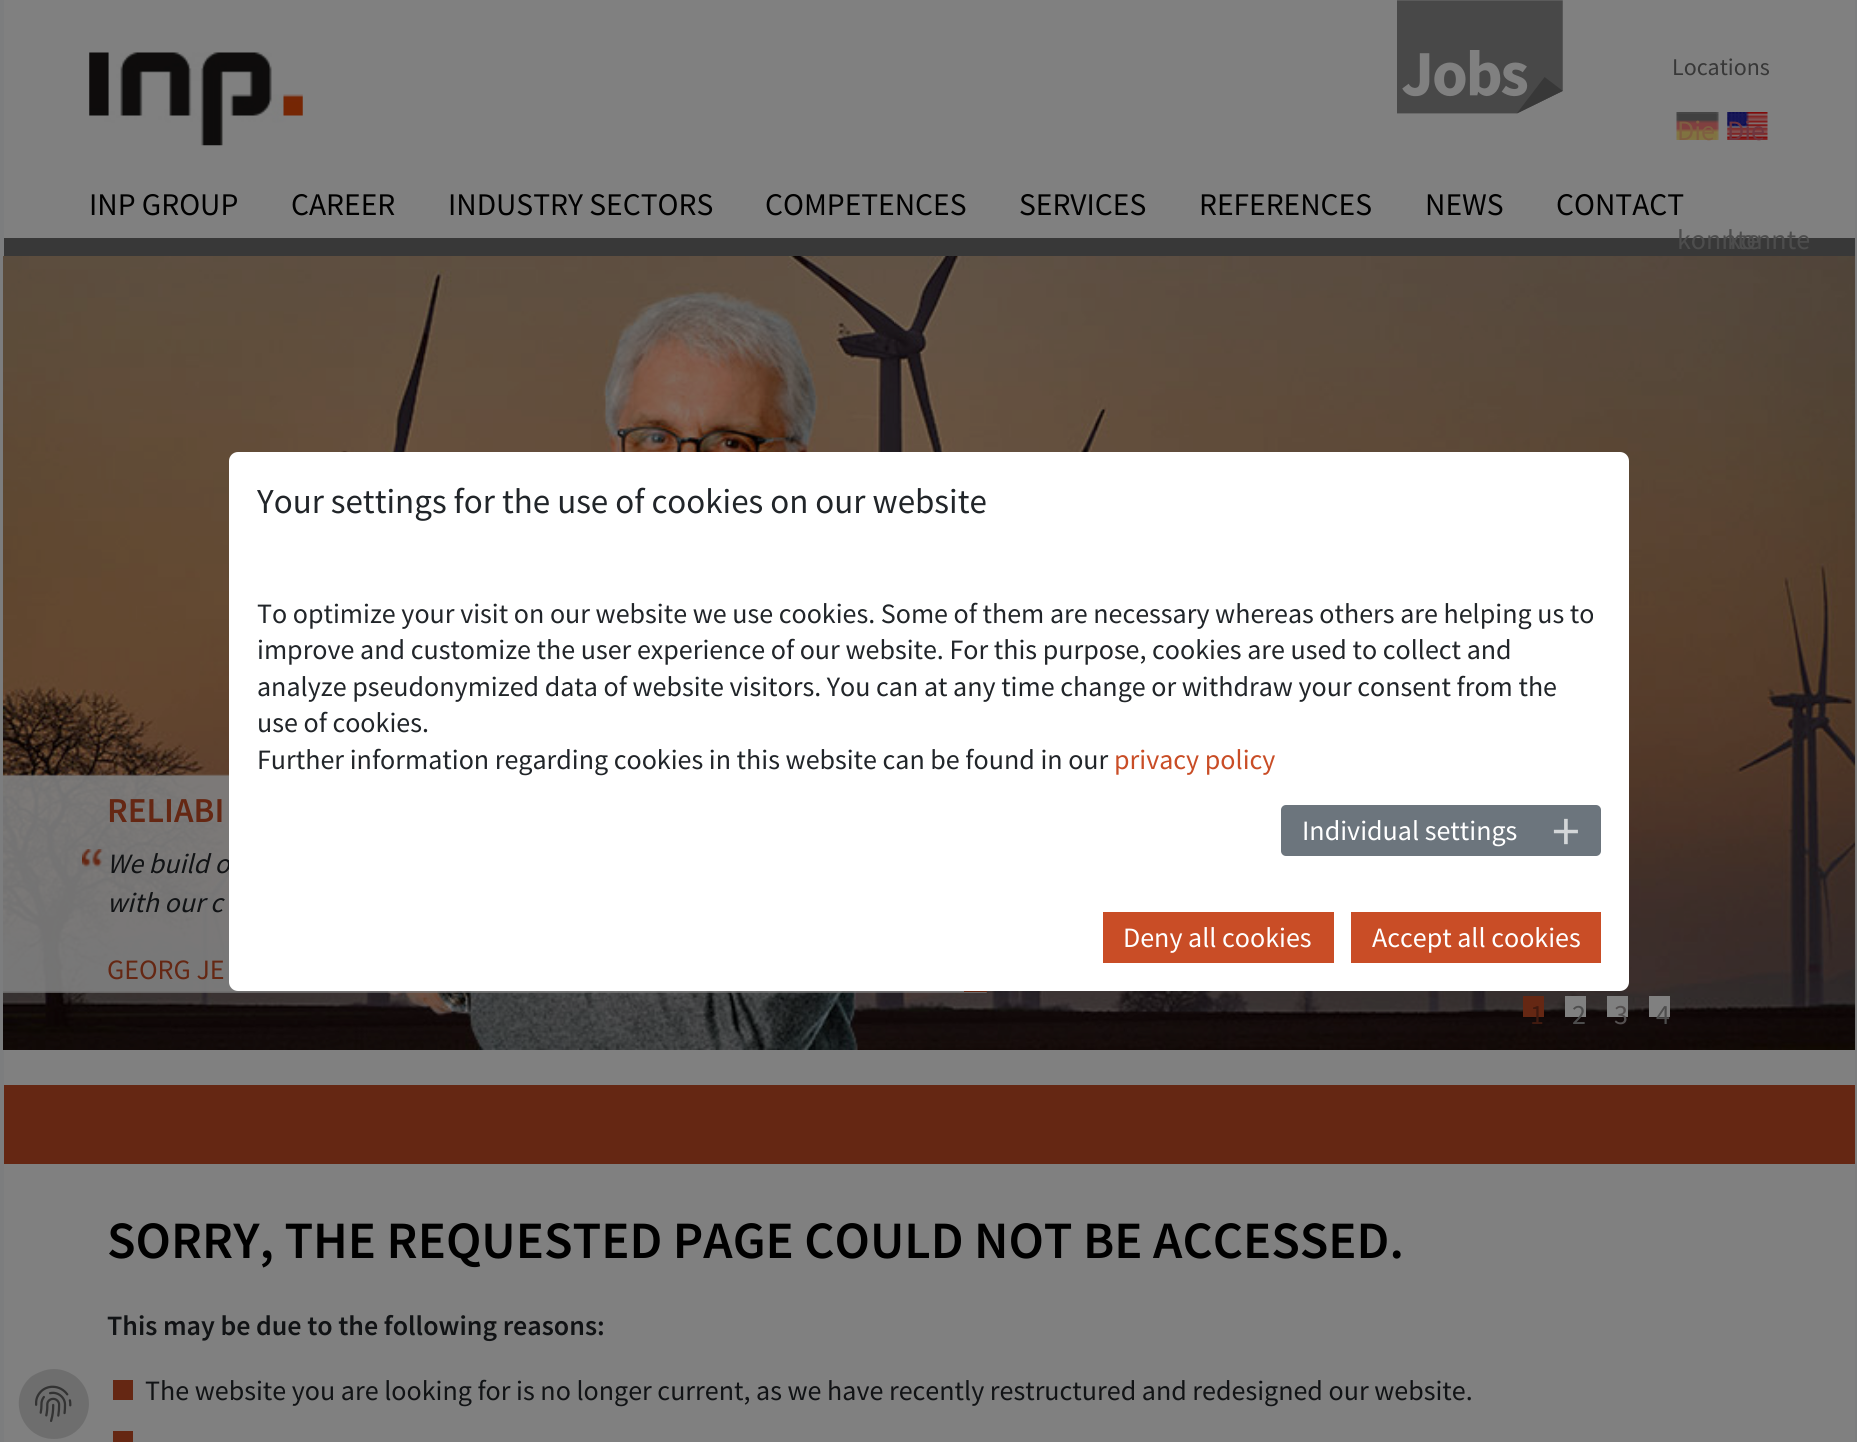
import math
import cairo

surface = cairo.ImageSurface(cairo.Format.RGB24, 1857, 1442)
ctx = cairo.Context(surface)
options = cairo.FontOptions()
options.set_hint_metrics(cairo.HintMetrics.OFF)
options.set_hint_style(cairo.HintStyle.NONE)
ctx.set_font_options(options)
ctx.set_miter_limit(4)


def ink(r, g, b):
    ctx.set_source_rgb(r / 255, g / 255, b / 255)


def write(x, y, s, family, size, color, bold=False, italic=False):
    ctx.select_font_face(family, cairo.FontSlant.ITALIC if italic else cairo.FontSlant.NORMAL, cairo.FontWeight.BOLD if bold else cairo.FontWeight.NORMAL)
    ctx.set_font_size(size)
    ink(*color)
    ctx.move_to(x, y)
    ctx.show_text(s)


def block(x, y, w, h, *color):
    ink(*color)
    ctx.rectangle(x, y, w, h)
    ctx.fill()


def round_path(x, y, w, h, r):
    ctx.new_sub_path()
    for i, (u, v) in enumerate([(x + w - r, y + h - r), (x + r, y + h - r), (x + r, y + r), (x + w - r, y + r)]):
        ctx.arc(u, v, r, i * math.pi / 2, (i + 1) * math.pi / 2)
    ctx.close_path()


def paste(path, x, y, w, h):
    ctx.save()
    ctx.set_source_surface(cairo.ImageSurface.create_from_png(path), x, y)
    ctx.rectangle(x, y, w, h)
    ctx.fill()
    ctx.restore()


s1 = dict(family="Source Sans Pro", size=24, color=(56, 56, 56))
s2 = dict(family="Source Sans Pro", size=31.5, color=(0, 0, 0))
s3 = dict(family="Source Sans Pro", size=28, color=(126, 94, 65))
s4 = dict(family="Source Sans Pro", size=28, color=(77, 77, 77))
s5 = dict(family="Source Sans Pro", size=28, color=(110, 53, 63))
s6 = dict(family="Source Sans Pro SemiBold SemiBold", size=35, color=(101, 39, 19))
s7 = dict(family="Source Sans Pro", size=28, color=(17, 19, 21), italic=True)
s8 = dict(family="Source Sans Pro", size=28, color=(101, 39, 19))
s9 = dict(family="Source Sans Pro", size=28, color=(64, 26, 15))
s10 = dict(family="Source Sans Pro", size=28, color=(84, 80, 80))
s11 = dict(family="Source Sans Pro SemiBold SemiBold", size=52.5, color=(0, 0, 0))
s12 = dict(family="Source Sans Pro SemiBold SemiBold", size=28, color=(17, 19, 21))
s13 = dict(family="Source Sans Pro", size=28, color=(17, 19, 21))
s14 = dict(family="Source Sans Pro", size=35, color=(33, 37, 41))
s15 = dict(family="Source Sans Pro", size=28, color=(33, 37, 41))
s16 = dict(family="Source Sans Pro", size=28, color=(201, 77, 38))
s17 = dict(family="Source Sans Pro", size=28, color=(255, 255, 255))
s18 = dict(family="Source Sans Pro", size=56, color=(211, 214, 216))

ink(124, 125, 126)
ctx.paint()
block(4, 0, 1851, 1442, 128, 128, 128)
ink(110, 110, 110)
ctx.new_path()
ctx.move_to(54, 1369)
ctx.curve_to(46, 1369, 39, 1372, 32, 1376)
ctx.curve_to(6, 1397, 21, 1439, 54, 1439)
ctx.curve_to(87, 1439, 102, 1397, 75, 1376)
ctx.curve_to(69, 1372, 62, 1369, 54, 1369)
ctx.close_path()
ctx.fill()
paste("pic1.png", 35, 1385, 37, 37)
paste("pic2.png", 89, 52, 214, 94)
paste("pic3.png", 1397, 0, 166, 114)
write(1672, 75, "Locations", **s1)
write(89, 215, "INP GROUP", **s2)
write(291, 215, "CAREER", **s2)
write(448, 215, "INDUSTRY SECTORS", **s2)
write(765, 215, "COMPETENCES", **s2)
write(1019, 215, "SERVICES", **s2)
write(1199, 215, "REFERENCES", **s2)
write(1425, 215, "NEWS", **s2)
write(1556, 215, "CONTACT", **s2)
paste("pic4.png", 1676, 112, 43, 28)
write(1677, 140, "Die", **s3)
block(4, 238, 1851, 18, 56, 56, 56)
write(1677, 249, "konnte", **s4)
paste("pic5.png", 1727, 112, 41, 28)
write(1727, 140, "Die", **s5)
write(1727, 249, "konnte", **s4)
paste("pic6.png", 3, 256, 1852, 794)
paste("pic7.png", 3, 774, 984, 219)
block(964, 991, 23, 1, 101, 39, 19)
write(107, 822, "RELIABI", **s6)
paste("pic8.png", 82, 849, 21, 18)
write(107, 873, "We build o", **s7)
write(107, 912, "with our c", **s7)
write(107, 979, "GEORG JE", **s8)
block(1523, 996, 21, 21, 101, 39, 19)
write(1530, 1024, "1", **s9)
block(1565, 996, 21, 21, 128, 128, 128)
write(1572, 1024, "2", **s4)
block(1607, 996, 21, 21, 128, 128, 128)
write(1614, 1024, "3", **s10)
block(1649, 996, 21, 21, 128, 128, 128)
write(1656, 1024, "4", **s4)
block(4, 1085, 1851, 79, 101, 39, 19)
write(107, 1258, "SORRY, THE REQUESTED PAGE COULD NOT BE ACCESSED.", **s11)
write(107, 1335, "This may be due to the following reasons:", **s12)
block(113, 1380, 20, 20, 101, 39, 19)
write(145, 1400, "The website you are looking for is no longer current, as we have recently restructured and redesigned our website.", **s13)
block(113, 1431, 20, 11, 101, 39, 19)
ink(255, 255, 255)
round_path(229, 452, 1400, 539, 9)
ctx.fill()
write(257, 513, "Your settings for the use of cookies on our website", **s14)
write(257, 623, "To optimize your visit on our website we use cookies. Some of them are necessary whereas others are helping us to", **s15)
write(257, 659, "improve and customize the user experience of our website. For this purpose, cookies are used to collect and", **s15)
write(257, 696, "analyze pseudonymized data of website visitors. You can at any time change or withdraw your consent from the", **s15)
write(257, 732, "use of cookies.", **s15)
write(257, 769, "Further information regarding cookies in this website can be found in our", **s15)
write(1114, 769, "privacy policy", **s16)
ink(108, 117, 125)
round_path(1281, 805, 320, 51, 5)
ctx.fill()
write(1302, 840, "Individual settings", **s17)
write(1552, 850, "+", **s18)
block(1103, 912, 231, 51, 201, 77, 38)
write(1123, 947, "Deny all cookies", **s17)
block(1351, 912, 250, 51, 201, 77, 38)
write(1372, 947, "Accept all cookies", **s17)
surface.write_to_png("screenshot.png")
